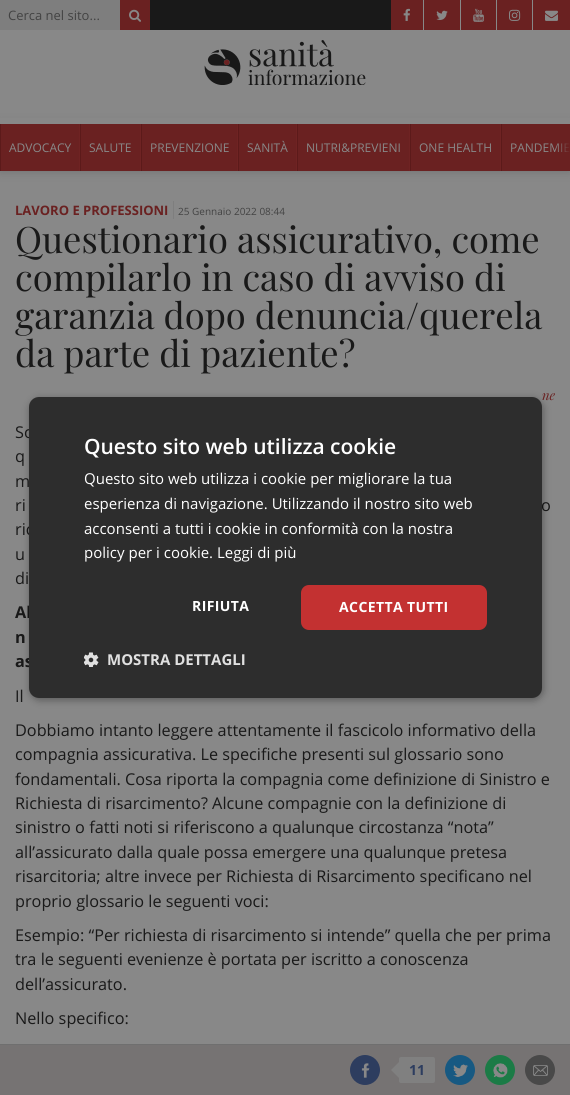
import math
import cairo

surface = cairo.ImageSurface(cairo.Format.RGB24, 570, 1095)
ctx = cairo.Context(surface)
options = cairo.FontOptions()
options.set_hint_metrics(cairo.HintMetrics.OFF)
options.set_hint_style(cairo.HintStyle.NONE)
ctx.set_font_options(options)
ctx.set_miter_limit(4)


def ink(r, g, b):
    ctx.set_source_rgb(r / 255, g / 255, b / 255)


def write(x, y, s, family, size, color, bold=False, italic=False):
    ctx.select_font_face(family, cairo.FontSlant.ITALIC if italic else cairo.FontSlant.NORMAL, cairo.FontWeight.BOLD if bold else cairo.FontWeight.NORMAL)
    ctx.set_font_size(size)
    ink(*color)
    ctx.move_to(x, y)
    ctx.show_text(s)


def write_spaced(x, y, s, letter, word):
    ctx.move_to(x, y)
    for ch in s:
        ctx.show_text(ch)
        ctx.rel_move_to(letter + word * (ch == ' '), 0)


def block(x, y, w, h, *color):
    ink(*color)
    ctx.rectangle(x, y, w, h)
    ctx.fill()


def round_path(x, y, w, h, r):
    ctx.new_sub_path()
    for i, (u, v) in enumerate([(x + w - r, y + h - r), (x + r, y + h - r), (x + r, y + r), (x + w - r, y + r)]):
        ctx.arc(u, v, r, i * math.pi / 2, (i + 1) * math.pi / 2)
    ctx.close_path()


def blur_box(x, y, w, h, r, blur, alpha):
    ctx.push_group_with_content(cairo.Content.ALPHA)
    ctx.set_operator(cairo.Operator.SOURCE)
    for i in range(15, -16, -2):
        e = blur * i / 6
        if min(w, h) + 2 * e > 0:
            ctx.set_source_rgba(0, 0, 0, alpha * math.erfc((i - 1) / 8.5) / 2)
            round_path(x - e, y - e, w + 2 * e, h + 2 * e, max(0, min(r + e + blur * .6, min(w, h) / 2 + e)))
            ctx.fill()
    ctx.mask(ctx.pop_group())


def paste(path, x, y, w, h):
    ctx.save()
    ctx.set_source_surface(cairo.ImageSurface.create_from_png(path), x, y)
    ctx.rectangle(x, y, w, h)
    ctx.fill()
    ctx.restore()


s1 = dict(family="Open Sans", size=13, color=(67, 67, 67))
s2 = dict(family="Open Sans", size=12, color=(136, 136, 136))
s3 = dict(family="Open Sans", size=13, color=(106, 33, 33), bold=True)
s4 = dict(family="Open Sans", size=10, color=(67, 67, 67))
s5 = dict(family="Playfair Display", size=36.4, color=(25, 25, 25))
s6 = dict(family="Playfair Display", size=13, color=(106, 33, 33), italic=True)
s7 = dict(family="Open Sans", size=16.25, color=(25, 25, 25))
s8 = dict(family="Open Sans", size=16.25, color=(25, 25, 25), bold=True)
s9 = dict(family="Open Sans", size=14, color=(45, 61, 95), bold=True)
s10 = dict(family="Open Sans SemiBold", size=21, color=(255, 255, 255))
s11 = dict(family="Open Sans", size=15, color=(255, 255, 255))
s12 = dict(family="Open Sans", size=15, color=(224, 224, 224), bold=True)

ink(136, 136, 136)
ctx.paint()
block(150, 0, 241, 30, 25, 25, 25)
block(0, 0, 120, 30, 126, 126, 126)
write(8, 20, "Cerca nel sito...", **s1)
block(120, 0, 30, 30, 106, 33, 33)
paste("pic1.png", 129, 9, 12, 13)
block(391, 0, 32, 30, 106, 33, 33)
paste("pic2.png", 403, 8, 7, 13)
block(424, 0, 36, 30, 106, 33, 33)
paste("pic3.png", 436, 10, 12, 10)
block(461, 0, 35, 30, 106, 33, 33)
paste("pic4.png", 473, 8, 11, 14)
block(497, 0, 35, 30, 106, 33, 33)
paste("pic5.png", 509, 9, 12, 12)
block(533, 0, 37, 30, 106, 33, 33)
paste("pic6.png", 545, 10, 13, 11)
ink(9, 9, 9)
blur_box(0, 124, 570, 47, 0, 5, 0.2)
block(0, 118, 570, 6, 136, 136, 136)
paste("pic7.png", 204, 40, 162, 45)
block(1, 124, 569, 47, 106, 33, 33)
block(79, 124, 1, 47, 111, 35, 35)
block(0, 124, 1, 47, 92, 26, 26)
write(9, 152, "ADVOCACY", **s2)
block(140, 124, 1, 47, 111, 35, 35)
block(80, 124, 1, 47, 92, 26, 26)
write(89, 152, "SALUTE", **s2)
block(237, 124, 1, 47, 111, 35, 35)
block(141, 124, 1, 47, 92, 26, 26)
write(150, 152, "PREVENZIONE", **s2)
block(296, 124, 1, 47, 111, 35, 35)
block(238, 124, 1, 47, 92, 26, 26)
write(247, 152, "SANITÀ", **s2)
block(409, 124, 1, 47, 111, 35, 35)
block(297, 124, 1, 47, 92, 26, 26)
write(306, 152, "NUTRI&PREVIENI", **s2)
block(500, 124, 1, 47, 111, 35, 35)
block(410, 124, 1, 47, 92, 26, 26)
write(419, 152, "ONE HEALTH", **s2)
block(501, 124, 1, 47, 92, 26, 26)
write(510, 152, "PANDEMIE", **s2)
gradient = cairo.LinearGradient(555, 148, 570, 148)
gradient.add_color_stop_rgba(0, 0.416, 0.129, 0.129, 0)
gradient.add_color_stop_rgba(1, 0.416, 0.129, 0.129, 1)
ctx.set_source(gradient)
ctx.rectangle(555, 143, 15, 9)
ctx.fill()
write(15, 215, "LAVORO E PROFESSIONI", **s3)
block(173, 201, 1, 18, 126, 126, 126)
write(178, 215, "25 Gennaio 2022 08:44", **s4)
write(15, 253, "Questionario assicurativo, come", **s5)
write(15, 291, "compilarlo in caso di avviso di", **s5)
write(15, 329, "garanzia dopo denuncia/querela", **s5)
write(15, 367, "da parte di paziente?", **s5)
write(542, 400, "ne", **s6)
write(15, 438, "So", **s7)
write(15, 462, "q", **s7)
write(15, 487, "m", **s7)
write(15, 511, "ri", **s7)
write(541, 511, "o", **s7)
write(15, 535, "ric", **s7)
write(15, 560, "u", **s7)
write(15, 584, "di", **s7)
write(15, 618, "Al", **s8)
write(15, 643, "n", **s8)
write(15, 667, "as", **s8)
write(15, 702, "Il", **s7)
write(15, 736, "Dobbiamo intanto leggere attentamente il fascicolo informativo della", **s7)
write(15, 760, "compagnia assicurativa. Le specifiche presenti sul glossario sono", **s7)
write(15, 785, "fondamentali. Cosa riporta la compagnia come definizione di Sinistro e", **s7)
write(15, 809, "Richiesta di risarcimento? Alcune compagnie con la definizione di", **s7)
write(15, 833, "sinistro o fatti noti si riferiscono a qualunque circostanza “nota”", **s7)
write(15, 858, "all’assicurato dalla quale possa emergere una qualunque pretesa", **s7)
write(15, 882, "risarcitoria; altre invece per Richiesta di Risarcimento specificano nel", **s7)
write(15, 907, "proprio glossario le seguenti voci:", **s7)
write(15, 941, "Esempio: “Per richiesta di risarcimento si intende” quella che per prima", **s7)
write(15, 965, "tra le seguenti evenienze è portata per iscritto a conoscenza", **s7)
write(15, 990, "dell’assicurato.", **s7)
write(15, 1024, "Nello specifico:", **s7)
block(0, 1045, 570, 50, 118, 115, 115)
block(0, 1044, 570, 1, 111, 111, 111)
ink(45, 61, 95)
ctx.new_path()
ctx.arc(365, 1070, 15, 0, 2 * math.pi)
ctx.fill()
paste("pic8.png", 361, 1063, 9, 15)
ink(128, 128, 128)
round_path(399, 1057, 36, 26, 2)
ctx.fill()
ctx.new_path()
ctx.move_to(399, 1062)
ctx.line_to(399, 1078)
ctx.line_to(391, 1070)
ctx.close_path()
ctx.fill()
write(409, 1075, "11", **s9)
ink(23, 89, 130)
ctx.new_path()
ctx.arc(460, 1070, 15, 0, 2 * math.pi)
ctx.fill()
paste("pic9.png", 453, 1064, 15, 13)
ink(27, 123, 70)
ctx.arc(500, 1070, 15, 0, 2 * math.pi)
ctx.fill()
paste("pic10.png", 493, 1063, 15, 15)
ink(73, 73, 73)
ctx.arc(540, 1070, 15, 0, 2 * math.pi)
ctx.fill()
paste("pic11.png", 533, 1065, 15, 11)
ink(0, 0, 0)
blur_box(30, 399, 513, 301, 10, 4, 0.35)
ink(45, 45, 45)
round_path(29, 397, 513, 301, 10)
ctx.fill()
write(84, 454, "Questo sito web utilizza cookie", **s10)
write(84, 484, "Questo sito web utilizza i cookie per migliorare la tua", **s11)
write(84, 509, "esperienza di navigazione. Utilizzando il nostro sito web", **s11)
write(84, 534, "acconsenti a tutti i cookie in conformità con la nostra", **s11)
write(84, 558, "policy per i cookie. Leggi di più", **s11)
ctx.select_font_face("Open Sans", cairo.FontSlant.NORMAL, cairo.FontWeight.BOLD)
ctx.set_font_size(14)
write_spaced(192, 611, "RIFIUTA", 0.4, 0)
ink(195, 49, 49)
round_path(301, 585, 186, 45, 8)
ctx.fill()
ink(255, 255, 255)
write_spaced(339, 612, "ACCETTA TUTTI", 0.4, 0)
paste("pic12.png", 84, 652, 15, 15)
write(107, 665, "MOSTRA DETTAGLI", **s12)
surface.write_to_png("screenshot.png")
